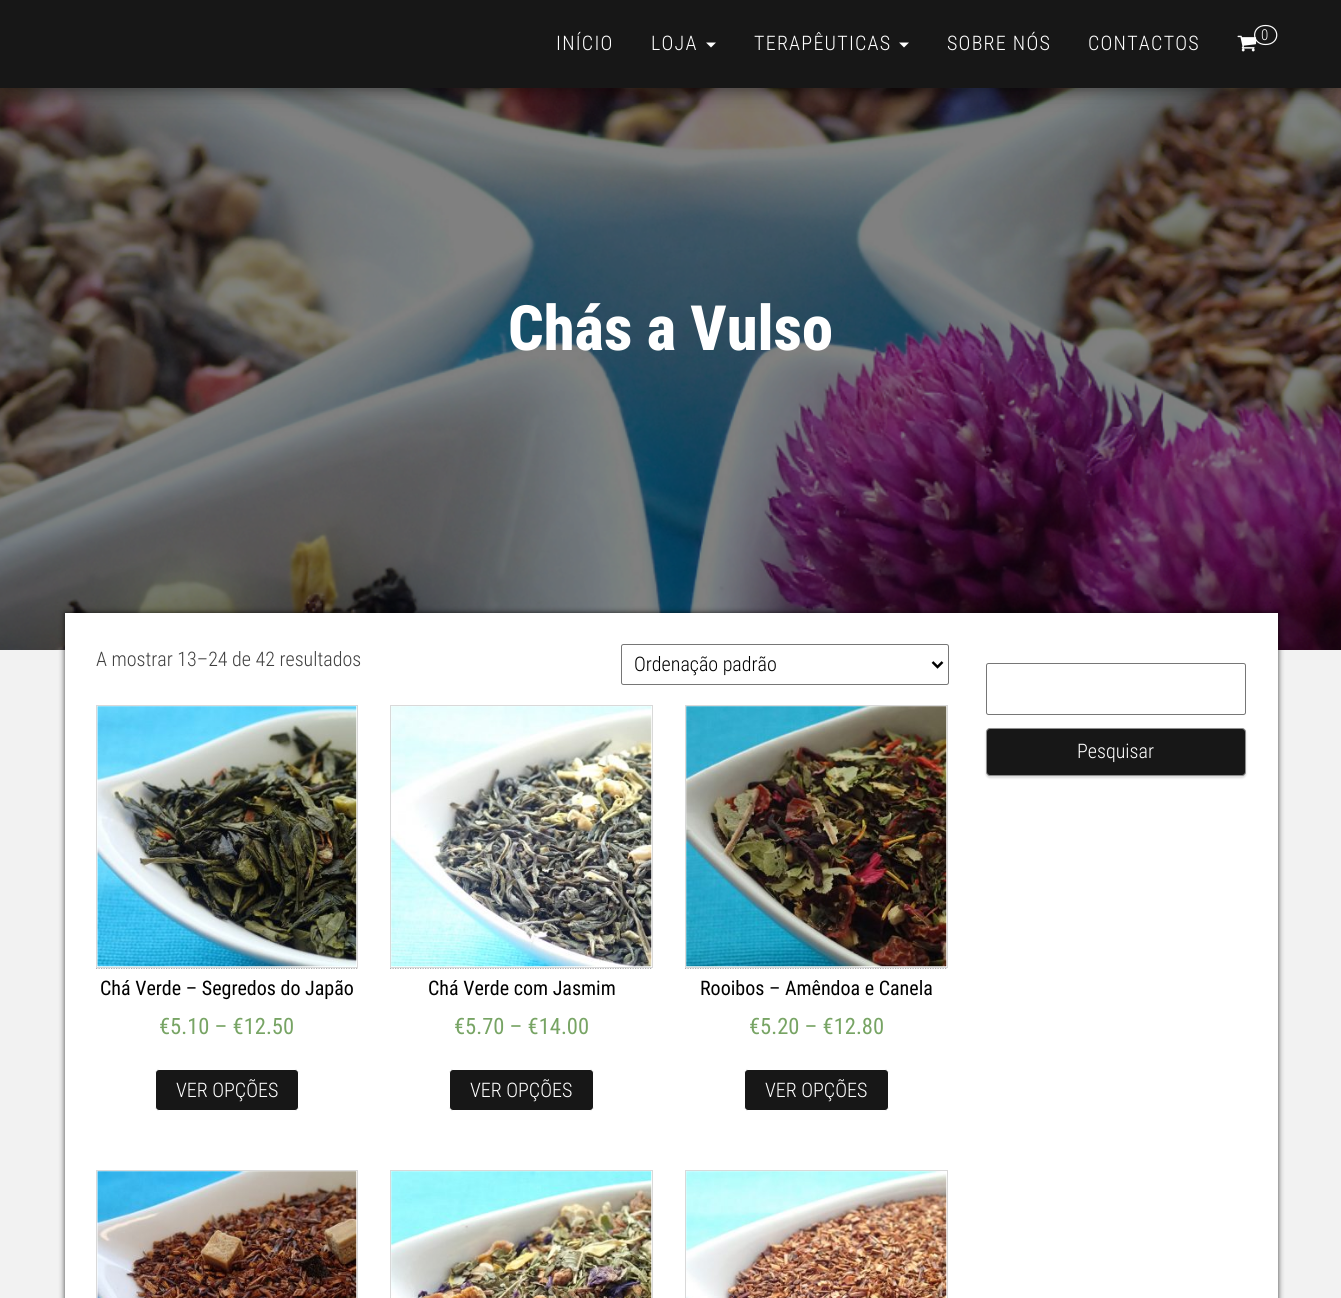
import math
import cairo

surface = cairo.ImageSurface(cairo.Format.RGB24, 1341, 1298)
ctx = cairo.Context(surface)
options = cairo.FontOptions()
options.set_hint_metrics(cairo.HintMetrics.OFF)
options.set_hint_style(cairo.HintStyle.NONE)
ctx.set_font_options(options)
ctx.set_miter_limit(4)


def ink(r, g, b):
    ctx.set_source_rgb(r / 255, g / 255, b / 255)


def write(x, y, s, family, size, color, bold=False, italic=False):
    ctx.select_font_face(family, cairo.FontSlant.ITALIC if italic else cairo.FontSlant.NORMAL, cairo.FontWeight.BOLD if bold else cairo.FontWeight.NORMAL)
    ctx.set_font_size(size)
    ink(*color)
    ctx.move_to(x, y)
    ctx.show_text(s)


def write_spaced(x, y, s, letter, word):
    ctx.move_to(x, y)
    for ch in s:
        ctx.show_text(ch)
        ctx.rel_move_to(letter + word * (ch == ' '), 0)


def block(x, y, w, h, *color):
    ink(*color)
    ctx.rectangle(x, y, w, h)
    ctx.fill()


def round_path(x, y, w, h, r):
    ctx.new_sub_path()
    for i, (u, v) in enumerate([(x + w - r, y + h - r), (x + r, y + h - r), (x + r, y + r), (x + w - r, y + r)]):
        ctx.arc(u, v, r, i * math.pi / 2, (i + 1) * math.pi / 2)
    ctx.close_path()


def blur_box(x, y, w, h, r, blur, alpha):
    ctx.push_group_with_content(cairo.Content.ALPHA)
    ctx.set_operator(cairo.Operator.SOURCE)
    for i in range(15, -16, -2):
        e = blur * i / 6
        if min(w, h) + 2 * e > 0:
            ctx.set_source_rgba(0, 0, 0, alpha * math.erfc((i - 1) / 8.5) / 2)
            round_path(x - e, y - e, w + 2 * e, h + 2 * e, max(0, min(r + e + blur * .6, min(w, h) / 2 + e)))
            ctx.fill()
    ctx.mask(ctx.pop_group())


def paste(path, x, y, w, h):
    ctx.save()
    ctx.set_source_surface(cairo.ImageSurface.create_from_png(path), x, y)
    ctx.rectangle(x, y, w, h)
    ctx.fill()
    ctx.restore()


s1 = dict(family="Roboto Condensed ExtraBold", size=62.5, color=(255, 255, 255))
s2 = dict(family="Roboto Condensed Light", size=20, color=(64, 64, 64))
s3 = dict(family="Roboto Condensed Light", size=20, color=(0, 0, 0))
s4 = dict(family="Roboto Condensed", size=20, color=(0, 0, 0))
s5 = dict(family="Roboto Condensed", size=22.5, color=(119, 164, 100))
s6 = dict(family="Roboto Condensed Light", size=20, color=(255, 255, 255))

ink(242, 242, 242)
ctx.paint()
paste("pic2.png", 0, 88, 1341, 562)
ink(0, 0, 0)
blur_box(6, 16, 1329, 75, 0, 6, 0.2)
blur_box(0, 4, 1341, 87, 0, 12.5, 0.12)
blur_box(15, 28, 1311, 57, 0, 12.5, 0.42)
block(0, 0, 1341, 88, 23, 23, 23)
ctx.select_font_face("Roboto Condensed Light")
ctx.set_font_size(20)
ink(255, 255, 255)
write_spaced(556, 50, "INÍCIO", 1.25, 0)
write_spaced(651, 50, "LOJA", 1.25, 0)
ctx.new_path()
ctx.move_to(706, 42.5)
ctx.line_to(716, 42.5)
ctx.line_to(711, 47.5)
ctx.close_path()
ctx.fill()
write_spaced(754, 50, "TERAPÊUTICAS", 1.25, 0)
ctx.new_path()
ctx.move_to(899, 42.5)
ctx.line_to(909, 42.5)
ctx.line_to(904, 47.5)
ctx.close_path()
ctx.fill()
write_spaced(947, 50, "SOBRE NÓS", 1.25, 0)
write_spaced(1088, 50, "CONTACTOS", 1.25, 0)
paste("pic1.png", 1237, 35, 20, 17)
ctx.new_path()
ctx.move_to(1265.5, 25.5)
ctx.curve_to(1280.5, 25.5, 1280.5, 44.5, 1265.5, 44.5)
ctx.curve_to(1251, 44.5, 1251, 25.5, 1265.5, 25.5)
ctx.close_path()
ctx.set_line_width(1.2)
ctx.stroke()
ctx.set_font_size(15)
write_spaced(1261, 40, "0", 1.25, 0)
write(508, 350, "Chás a Vulso", **s1)
ink(0, 0, 0)
blur_box(65, 613, 1213, 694, 0, 3, 0.75)
block(65, 613, 1213, 685, 255, 255, 255)
write(96, 666, "A mostrar 13–24 de 42 resultados", **s2)
round_path(621.5, 644.5, 327, 40, 2)
ink(118, 118, 118)
ctx.set_line_width(1)
ctx.stroke()
ctx.new_path()
ctx.move_to(932.5, 662)
ctx.line_to(937.5, 667)
ctx.line_to(942.5, 662)
ink(0, 0, 0)
ctx.set_line_width(2.5)
ctx.stroke()
write(634, 671, "Ordenação padrão", **s3)
ctx.new_path()
ctx.move_to(96, 968)
ctx.line_to(357.5, 968)
ink(119, 119, 119)
ctx.set_line_width(1.2)
ctx.set_dash([1.25, 1.25])
ctx.stroke()
ctx.rectangle(96.5, 705.5, 261, 262)
ink(217, 217, 217)
ctx.set_line_width(1)
ctx.set_dash([])
ctx.stroke()
paste("pic3.png", 97, 706, 260, 261)
write(100, 995, "Chá Verde – Segredos do Japão", **s4)
write(159, 1034, "€5.10 – €12.50", **s5)
ink(23, 23, 23)
round_path(155.5, 1069.5, 143, 41, 3.5)
ctx.fill_preserve()
ink(255, 255, 255)
ctx.stroke()
write(176, 1097, "VER OPÇÕES", **s6)
ctx.new_path()
ctx.move_to(390, 968)
ctx.line_to(652.5, 968)
ink(119, 119, 119)
ctx.set_line_width(1.2)
ctx.set_dash([1.25, 1.25])
ctx.stroke()
ctx.rectangle(390.5, 705.5, 262, 262)
ink(217, 217, 217)
ctx.set_line_width(1)
ctx.set_dash([])
ctx.stroke()
paste("pic4.png", 391, 706, 261, 261)
write(428, 995, "Chá Verde com Jasmim", **s4)
write(454, 1034, "€5.70 – €14.00", **s5)
ink(23, 23, 23)
round_path(449.5, 1069.5, 144, 41, 3.5)
ctx.fill_preserve()
ink(255, 255, 255)
ctx.stroke()
write(470, 1097, "VER OPÇÕES", **s6)
ctx.new_path()
ctx.move_to(685, 968)
ctx.line_to(947.5, 968)
ink(119, 119, 119)
ctx.set_line_width(1.2)
ctx.set_dash([1.25, 1.25])
ctx.stroke()
ctx.rectangle(685.5, 705.5, 262, 262)
ink(217, 217, 217)
ctx.set_line_width(1)
ctx.set_dash([])
ctx.stroke()
paste("pic5.png", 686, 706, 261, 261)
write(700, 995, "Rooibos – Amêndoa e Canela", **s4)
write(749, 1034, "€5.20 – €12.80", **s5)
ink(23, 23, 23)
round_path(744.5, 1069.5, 144, 41, 3.5)
ctx.fill_preserve()
ink(255, 255, 255)
ctx.stroke()
write(765, 1097, "VER OPÇÕES", **s6)
ctx.rectangle(96.5, 1170.5, 261, 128)
ink(217, 217, 217)
ctx.stroke()
paste("pic6.png", 97, 1171, 260, 127)
ctx.rectangle(390.5, 1170.5, 262, 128)
ctx.stroke()
paste("pic7.png", 391, 1171, 261, 127)
ctx.rectangle(685.5, 1170.5, 262, 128)
ctx.stroke()
paste("pic8.png", 686, 1171, 261, 127)
round_path(986.5, 663.5, 259, 51, 2)
ink(118, 118, 118)
ctx.stroke()
ink(0, 0, 0)
blur_box(986, 729, 260, 49, 4, 1, 0.15)
ink(23, 23, 23)
round_path(986.5, 728.5, 259, 47, 3.5)
ctx.fill_preserve()
ink(142, 142, 142)
ctx.stroke()
write(1077, 758, "Pesquisar", **s6)
surface.write_to_png("screenshot.png")
